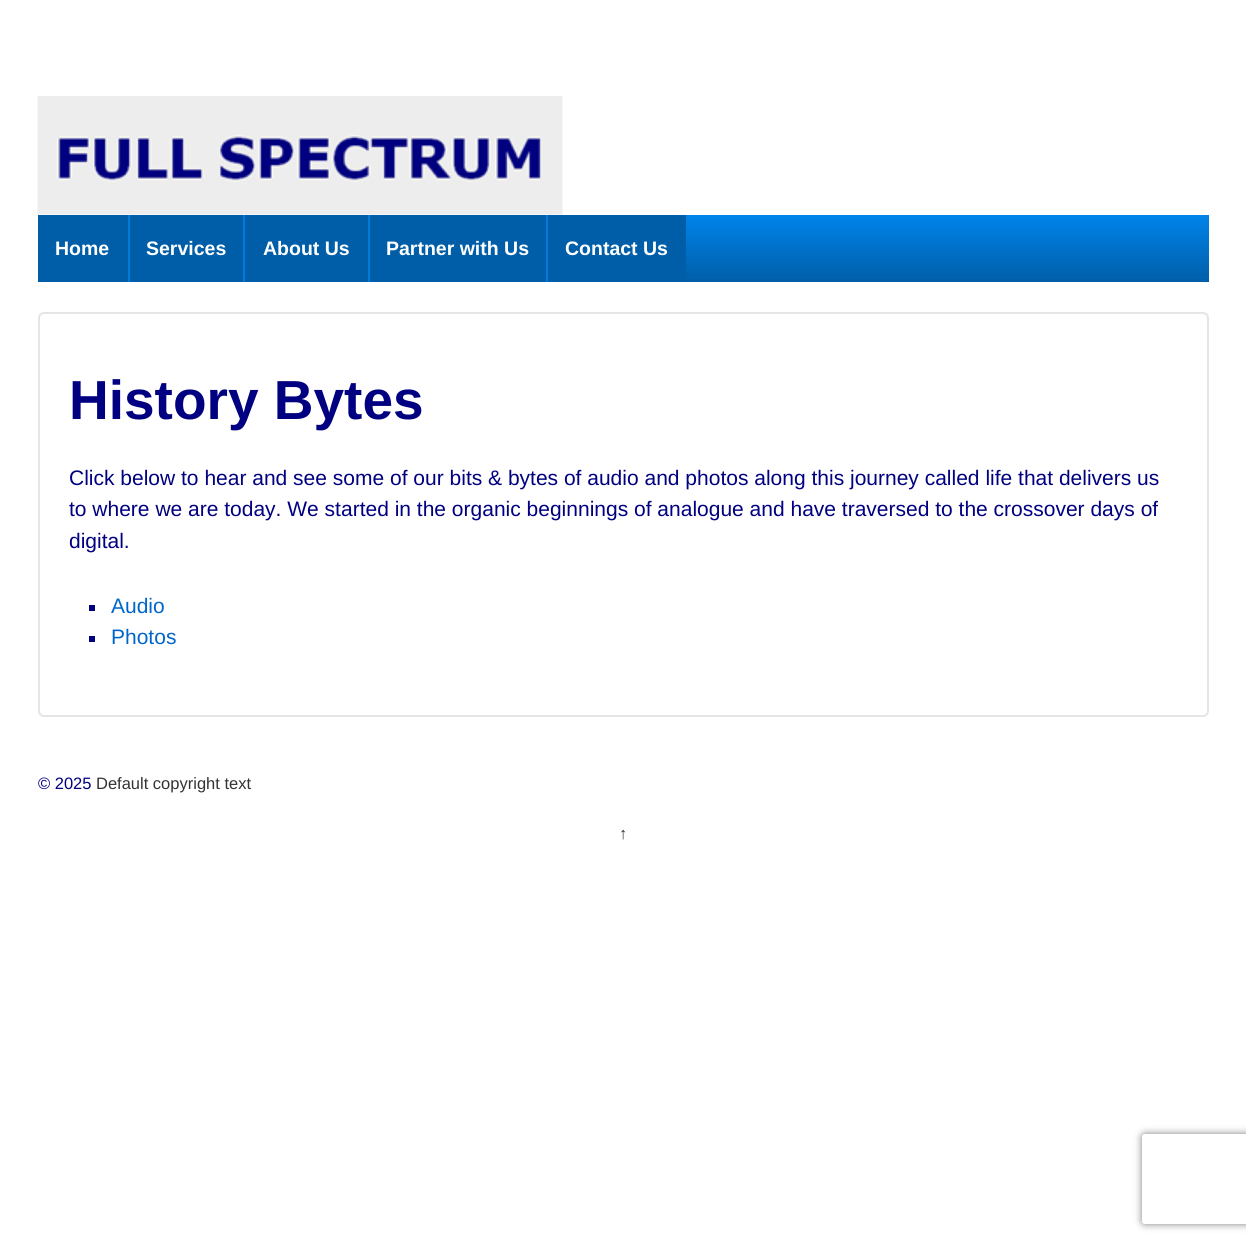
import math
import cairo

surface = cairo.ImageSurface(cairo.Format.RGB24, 1246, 1244)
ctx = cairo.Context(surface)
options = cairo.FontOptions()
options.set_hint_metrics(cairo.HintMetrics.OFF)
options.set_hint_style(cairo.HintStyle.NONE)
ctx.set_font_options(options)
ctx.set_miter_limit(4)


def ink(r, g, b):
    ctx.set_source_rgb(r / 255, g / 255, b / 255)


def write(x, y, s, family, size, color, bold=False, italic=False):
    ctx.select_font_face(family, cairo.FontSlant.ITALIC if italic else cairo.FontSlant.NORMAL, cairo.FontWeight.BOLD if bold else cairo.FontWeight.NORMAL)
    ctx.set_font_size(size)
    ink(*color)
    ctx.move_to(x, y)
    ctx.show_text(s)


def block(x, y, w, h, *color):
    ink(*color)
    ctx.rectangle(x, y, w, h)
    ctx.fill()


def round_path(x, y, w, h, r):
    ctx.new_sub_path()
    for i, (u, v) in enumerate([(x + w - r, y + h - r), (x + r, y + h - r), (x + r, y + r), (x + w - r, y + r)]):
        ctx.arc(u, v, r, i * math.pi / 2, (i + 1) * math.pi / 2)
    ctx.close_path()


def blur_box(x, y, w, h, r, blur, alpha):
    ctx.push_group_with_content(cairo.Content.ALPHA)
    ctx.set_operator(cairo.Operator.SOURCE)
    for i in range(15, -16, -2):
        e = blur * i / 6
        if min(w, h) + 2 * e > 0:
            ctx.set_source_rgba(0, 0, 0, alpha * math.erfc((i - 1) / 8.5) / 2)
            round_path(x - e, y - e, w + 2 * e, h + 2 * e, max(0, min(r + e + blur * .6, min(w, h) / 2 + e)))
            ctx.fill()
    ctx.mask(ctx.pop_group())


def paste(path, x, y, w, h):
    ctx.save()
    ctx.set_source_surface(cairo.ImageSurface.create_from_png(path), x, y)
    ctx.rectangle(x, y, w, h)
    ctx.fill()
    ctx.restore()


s1 = dict(family="Liberation Sans", size=19.5, color=(255, 255, 255), bold=True)
s2 = dict(family="Liberation Sans", size=55, color=(0, 0, 128), bold=True)
s3 = dict(family="Liberation Sans", size=21, color=(0, 0, 128))
s4 = dict(family="Liberation Sans", size=21, color=(0, 102, 204))
s5 = dict(family="Liberation Sans", size=16.5, color=(0, 0, 128))
s6 = dict(family="Liberation Sans", size=16.5, color=(51, 51, 51))

ink(255, 255, 255)
ctx.paint()
paste("pic1.png", 37, 96, 526, 119)
gradient = cairo.LinearGradient(623, 214, 623, 282)
gradient.add_color_stop_rgba(0, 0, 0.518, 0.922, 1)
gradient.add_color_stop_rgba(1, 0, 0.369, 0.659, 1)
ctx.set_source(gradient)
ctx.rectangle(686, 215, 523, 67)
ctx.fill()
block(38, 215, 90, 67, 0, 94, 168)
write(55, 255, "Home", **s1)
block(130, 215, 113, 67, 0, 94, 168)
block(128, 215, 2, 67, 2, 122, 215)
write(146, 255, "Services", **s1)
block(245, 215, 123, 67, 0, 94, 168)
block(243, 215, 2, 67, 2, 122, 215)
write(263, 255, "About Us", **s1)
block(370, 215, 176, 67, 0, 94, 168)
block(368, 215, 2, 67, 2, 122, 215)
write(386, 255, "Partner with Us", **s1)
block(548, 215, 138, 67, 0, 94, 168)
block(546, 215, 2, 67, 2, 122, 215)
write(565, 255, "Contact Us", **s1)
round_path(39, 313, 1169, 403, 5)
ink(229, 229, 229)
ctx.stroke()
write(69, 419, "History Bytes", **s2)
write(69, 485, "Click below to hear and see some of our bits & bytes of audio and photos along this journey called life that delivers us", **s3)
write(69, 516, "to where we are today. We started in the organic beginnings of analogue and have traversed to the crossover days of", **s3)
write(69, 548, "digital.", **s3)
block(89, 605, 6, 6, 0, 0, 128)
write(111, 613, "Audio", **s4)
block(89, 636, 6, 6, 0, 0, 128)
write(111, 644, "Photos", **s4)
write(38, 789, "© 2025", **s5)
write(96, 789, "Default copyright text", **s6)
write(619, 839, "↑", **s6)
ctx.save()
ctx.set_fill_rule(cairo.FillRule.EVEN_ODD)
ctx.new_path()
ctx.move_to(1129, 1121)
ctx.line_to(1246, 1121)
ctx.line_to(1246, 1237)
ctx.line_to(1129, 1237)
ctx.close_path()
ctx.move_to(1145, 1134)
ctx.line_to(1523, 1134)
ctx.curve_to(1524.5, 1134, 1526, 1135.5, 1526, 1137)
ctx.line_to(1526, 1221)
ctx.curve_to(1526, 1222.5, 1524.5, 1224, 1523, 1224)
ctx.line_to(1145, 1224)
ctx.curve_to(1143.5, 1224, 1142, 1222.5, 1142, 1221)
ctx.line_to(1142, 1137)
ctx.curve_to(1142, 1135.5, 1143.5, 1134, 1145, 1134)
ctx.close_path()
ctx.clip()
ink(128, 128, 128)
blur_box(1142, 1134, 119, 90, 3, 4, 1)
ctx.restore()
surface.write_to_png("screenshot.png")
